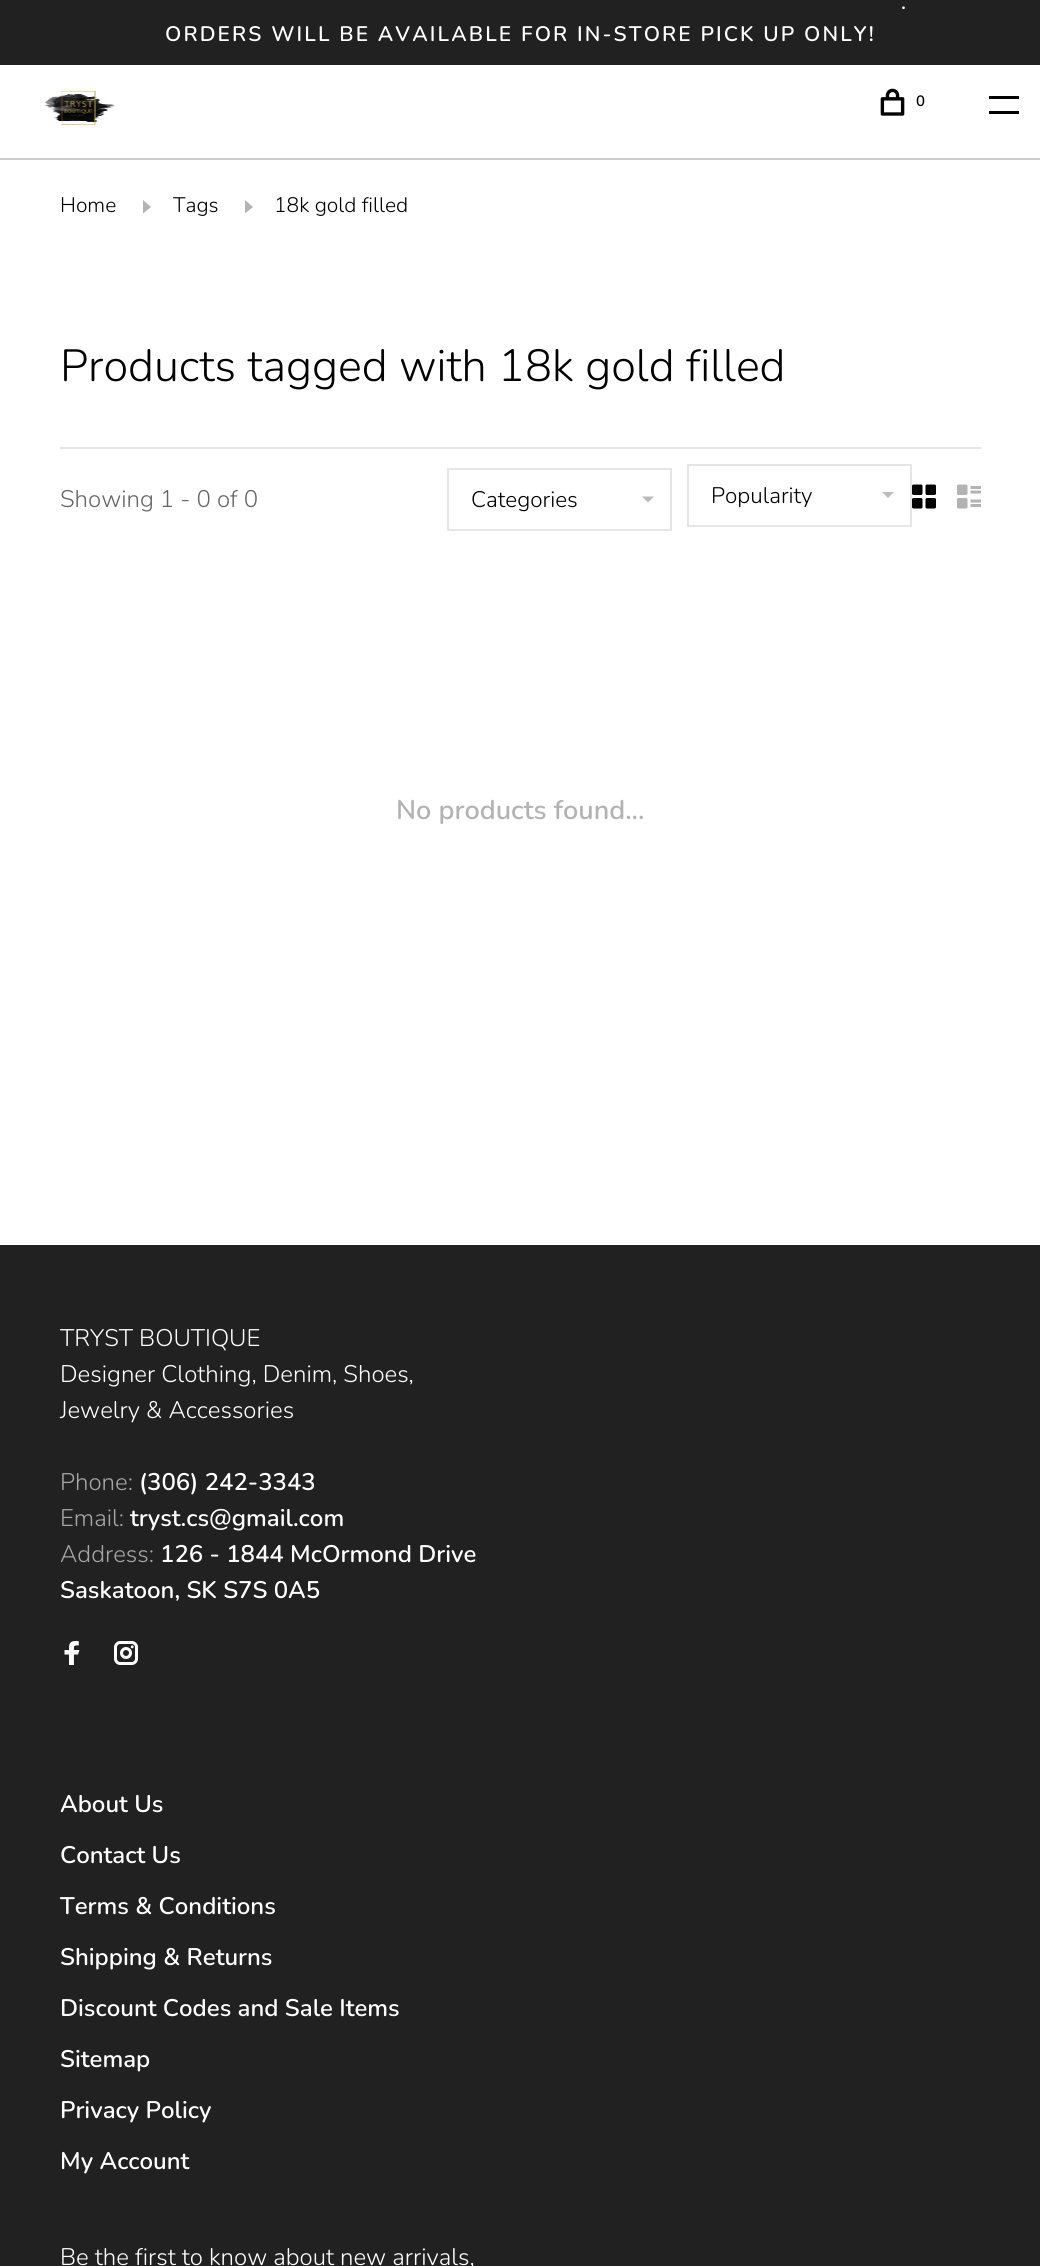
import math
import cairo

surface = cairo.ImageSurface(cairo.Format.RGB24, 1040, 2266)
ctx = cairo.Context(surface)
options = cairo.FontOptions()
options.set_hint_metrics(cairo.HintMetrics.OFF)
options.set_hint_style(cairo.HintStyle.NONE)
ctx.set_font_options(options)
ctx.set_miter_limit(4)


def ink(r, g, b):
    ctx.set_source_rgb(r / 255, g / 255, b / 255)


def write(x, y, s, family, size, color, bold=False, italic=False):
    ctx.select_font_face(family, cairo.FontSlant.ITALIC if italic else cairo.FontSlant.NORMAL, cairo.FontWeight.BOLD if bold else cairo.FontWeight.NORMAL)
    ctx.set_font_size(size)
    ink(*color)
    ctx.move_to(x, y)
    ctx.show_text(s)


def write_spaced(x, y, s, letter, word):
    ctx.move_to(x, y)
    for ch in s:
        ctx.show_text(ch)
        ctx.rel_move_to(letter + word * (ch == ' '), 0)


def block(x, y, w, h, *color):
    ink(*color)
    ctx.rectangle(x, y, w, h)
    ctx.fill()


def paste(path, x, y, w, h):
    ctx.save()
    ctx.set_source_surface(cairo.ImageSurface.create_from_png(path), x, y)
    ctx.rectangle(x, y, w, h)
    ctx.fill()
    ctx.restore()


s1 = dict(family="Nunito ExtraLight", size=21, color=(0, 0, 0))
s2 = dict(family="Nunito ExtraLight", size=45, color=(0, 0, 0))
s3 = dict(family="Nunito ExtraLight", size=24, color=(102, 102, 102))
s4 = dict(family="Nunito ExtraLight", size=22.5, color=(0, 0, 0))
s5 = dict(family="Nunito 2 ExtraLight", size=27, color=(179, 179, 179))
s6 = dict(family="Nunito ExtraLight", size=24, color=(255, 255, 255))
s7 = dict(family="Nunito ExtraLight", size=24, color=(166, 166, 166))
s8 = dict(family="Nunito 2 ExtraLight", size=24, color=(255, 255, 255))

ink(255, 255, 255)
ctx.paint()
block(0, 0, 1040, 65, 33, 33, 33)
ctx.select_font_face("Nunito 2 ExtraLight")
ctx.set_font_size(21)
ink(255, 255, 255)
write_spaced(901, 9, ".", 2.1, 0)
write_spaced(165, 41, "ORDERS WILL BE AVAILABLE FOR IN-STORE PICK UP ONLY!", 2.1, 0)
block(0, 158, 1040, 2, 204, 204, 204)
paste("pic1.png", 45, 90, 70, 35)
paste("pic2.png", 880, 88, 25, 28)
ctx.set_font_size(15)
ink(0, 0, 0)
write_spaced(916, 106, "0", 2.1, 0)
block(989, 96, 30, 3, 0, 0, 0)
block(989, 111, 30, 3, 0, 0, 0)
write(60, 212, "Home", **s1)
ink(179, 179, 179)
ctx.new_path()
ctx.move_to(143, 213.5)
ctx.line_to(151, 207)
ctx.line_to(143, 200)
ctx.close_path()
ctx.fill()
write(173, 212, "Tags", **s1)
ink(179, 179, 179)
ctx.new_path()
ctx.move_to(245, 213.5)
ctx.line_to(253, 207)
ctx.line_to(245, 200)
ctx.close_path()
ctx.fill()
write(274, 212, "18k gold filled", **s1)
write(60, 381, "Products tagged with 18k gold filled", **s2)
block(60, 447, 921, 2, 230, 230, 230)
write(60, 507, "Showing 1 - 0 of 0", **s3)
ctx.rectangle(448, 469, 223, 61)
ink(230, 230, 230)
ctx.stroke()
write(471, 507, "Categories", **s4)
ink(187, 187, 187)
ctx.new_path()
ctx.move_to(642, 496.5)
ctx.line_to(654, 496.5)
ctx.line_to(648, 502.5)
ctx.close_path()
ctx.fill()
ctx.rectangle(688, 465, 223, 61)
ink(230, 230, 230)
ctx.stroke()
write(711, 503, "Popularity", **s4)
ink(187, 187, 187)
ctx.new_path()
ctx.move_to(882, 492)
ctx.line_to(894, 492)
ctx.line_to(888, 498)
ctx.close_path()
ctx.fill()
paste("pic3.png", 912, 484, 24, 25)
paste("pic4.png", 957, 484, 24, 25)
write(396, 819, "No products found...", **s5)
block(0, 1245, 1040, 1021, 33, 33, 33)
write(60, 1346, "TRYST BOUTIQUE", **s6)
write(60, 1382, "Designer Clothing, Denim, Shoes,", **s6)
write(60, 1418, "Jewelry & Accessories", **s6)
write(60, 1490, "Phone:", **s7)
write(139, 1490, "(306) 242-3343", **s8)
write(60, 1526, "Email:", **s7)
write(130, 1526, "tryst.cs@gmail.com", **s8)
write(60, 1562, "Address:", **s7)
write(160, 1562, "126 - 1844 McOrmond Drive", **s8)
write(60, 1598, "Saskatoon, SK S7S 0A5", **s8)
paste("pic5.png", 64, 1641, 16, 24)
paste("pic6.png", 114, 1641, 24, 24)
write(60, 1812, "About Us", **s8)
write(60, 1863, "Contact Us", **s8)
write(60, 1914, "Terms & Conditions", **s8)
write(60, 1965, "Shipping & Returns", **s8)
write(60, 2016, "Discount Codes and Sale Items", **s8)
write(60, 2067, "Sitemap", **s8)
write(60, 2118, "Privacy Policy", **s8)
write(60, 2169, "My Account", **s8)
write(60, 2265, "Be the first to know about new arrivals,", **s6)
surface.write_to_png("screenshot.png")
